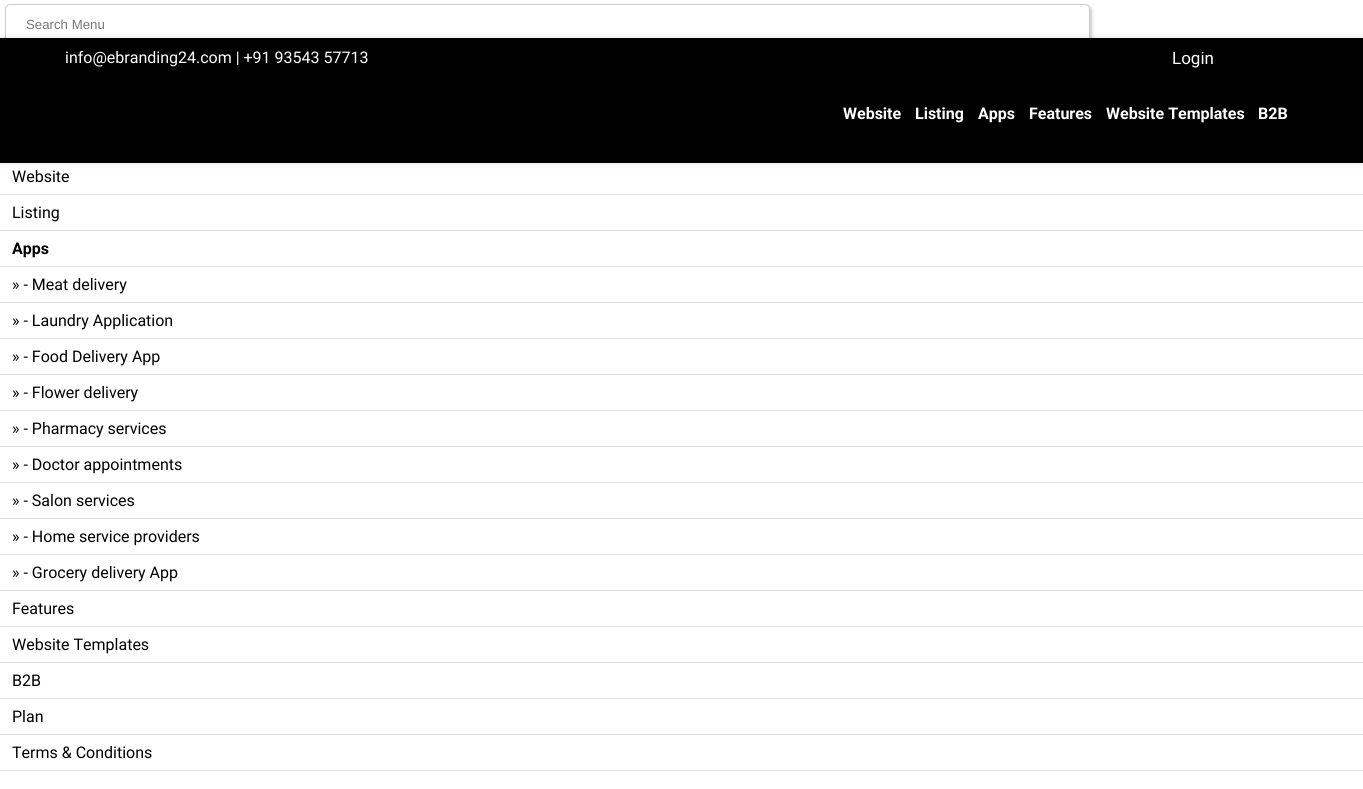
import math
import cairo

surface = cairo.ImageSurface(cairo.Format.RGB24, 1363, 789)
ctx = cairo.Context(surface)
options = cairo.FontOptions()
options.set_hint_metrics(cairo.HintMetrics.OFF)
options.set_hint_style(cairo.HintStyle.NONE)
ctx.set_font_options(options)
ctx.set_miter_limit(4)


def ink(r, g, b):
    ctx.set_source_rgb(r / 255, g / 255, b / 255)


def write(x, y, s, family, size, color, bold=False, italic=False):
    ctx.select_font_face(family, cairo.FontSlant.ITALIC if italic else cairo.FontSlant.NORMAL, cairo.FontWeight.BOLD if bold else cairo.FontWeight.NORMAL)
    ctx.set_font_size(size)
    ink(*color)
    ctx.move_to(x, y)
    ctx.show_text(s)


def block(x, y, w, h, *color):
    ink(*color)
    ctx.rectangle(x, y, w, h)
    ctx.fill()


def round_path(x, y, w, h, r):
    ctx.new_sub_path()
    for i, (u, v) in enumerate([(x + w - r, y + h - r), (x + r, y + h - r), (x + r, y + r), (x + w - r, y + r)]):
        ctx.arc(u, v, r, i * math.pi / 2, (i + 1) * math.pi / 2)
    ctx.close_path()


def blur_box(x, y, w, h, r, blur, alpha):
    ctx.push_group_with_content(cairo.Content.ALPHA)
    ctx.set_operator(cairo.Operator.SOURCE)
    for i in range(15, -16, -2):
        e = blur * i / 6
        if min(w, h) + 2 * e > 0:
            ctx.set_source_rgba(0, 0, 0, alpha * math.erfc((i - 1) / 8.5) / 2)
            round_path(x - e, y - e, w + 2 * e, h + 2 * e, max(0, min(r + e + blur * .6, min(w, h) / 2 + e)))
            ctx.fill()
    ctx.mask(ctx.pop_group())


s1 = dict(family="Liberation Sans", size=13.25, color=(117, 117, 117))
s2 = dict(family="Roboto", size=16, color=(0, 0, 0))
s3 = dict(family="Roboto", size=16, color=(0, 0, 0), bold=True)
s4 = dict(family="Roboto", size=16, color=(255, 255, 255))
s5 = dict(family="Roboto", size=17, color=(255, 255, 255))
s6 = dict(family="Roboto", size=16, color=(255, 255, 255), bold=True)

ink(255, 255, 255)
ctx.paint()
ink(204, 204, 204)
blur_box(7, 6, 1085, 40, 5, 1.5, 1)
ink(255, 255, 255)
round_path(5.5, 4.5, 1084, 39, 4.5)
ctx.fill_preserve()
ink(204, 204, 204)
ctx.set_line_width(1)
ctx.stroke()
write(26, 29, "Search Menu", **s1)
block(0, 194, 1363, 1, 221, 221, 221)
write(12, 182, "Website", **s2)
block(0, 230, 1363, 1, 221, 221, 221)
write(12, 218, "Listing", **s2)
block(0, 266, 1363, 1, 221, 221, 221)
write(12, 254, "Apps", **s3)
block(0, 302, 1363, 1, 221, 221, 221)
write(12, 290, "» - Meat delivery", **s2)
block(0, 338, 1363, 1, 221, 221, 221)
write(12, 326, "» - Laundry Application", **s2)
block(0, 374, 1363, 1, 221, 221, 221)
write(12, 362, "» - Food Delivery App", **s2)
block(0, 410, 1363, 1, 221, 221, 221)
write(12, 398, "» - Flower delivery", **s2)
block(0, 446, 1363, 1, 221, 221, 221)
write(12, 434, "» - Pharmacy services", **s2)
block(0, 482, 1363, 1, 221, 221, 221)
write(12, 470, "» - Doctor appointments", **s2)
block(0, 518, 1363, 1, 221, 221, 221)
write(12, 506, "» - Salon services", **s2)
block(0, 554, 1363, 1, 221, 221, 221)
write(12, 542, "» - Home service providers", **s2)
block(0, 590, 1363, 1, 221, 221, 221)
write(12, 578, "» - Grocery delivery App", **s2)
block(0, 626, 1363, 1, 221, 221, 221)
write(12, 614, "Features", **s2)
block(0, 662, 1363, 1, 221, 221, 221)
write(12, 650, "Website Templates", **s2)
block(0, 698, 1363, 1, 221, 221, 221)
write(12, 686, "B2B", **s2)
block(0, 734, 1363, 1, 221, 221, 221)
write(12, 722, "Plan", **s2)
block(0, 770, 1363, 1, 221, 221, 221)
write(12, 758, "Terms & Conditions", **s2)
ink(0, 0, 0)
blur_box(0, 38, 1363, 125, 0, 4, 0.12)
block(0, 38, 1363, 125, 0, 0, 0)
write(65, 63, "info@ebranding24.com | +91 93543 57713", **s4)
write(1172, 64, "Login", **s5)
write(843, 119, "Website", **s6)
write(915, 119, "Listing", **s6)
write(978, 119, "Apps", **s6)
write(1029, 119, "Features", **s6)
write(1106, 119, "Website Templates", **s6)
write(1258, 119, "B2B", **s6)
surface.write_to_png("screenshot.png")
